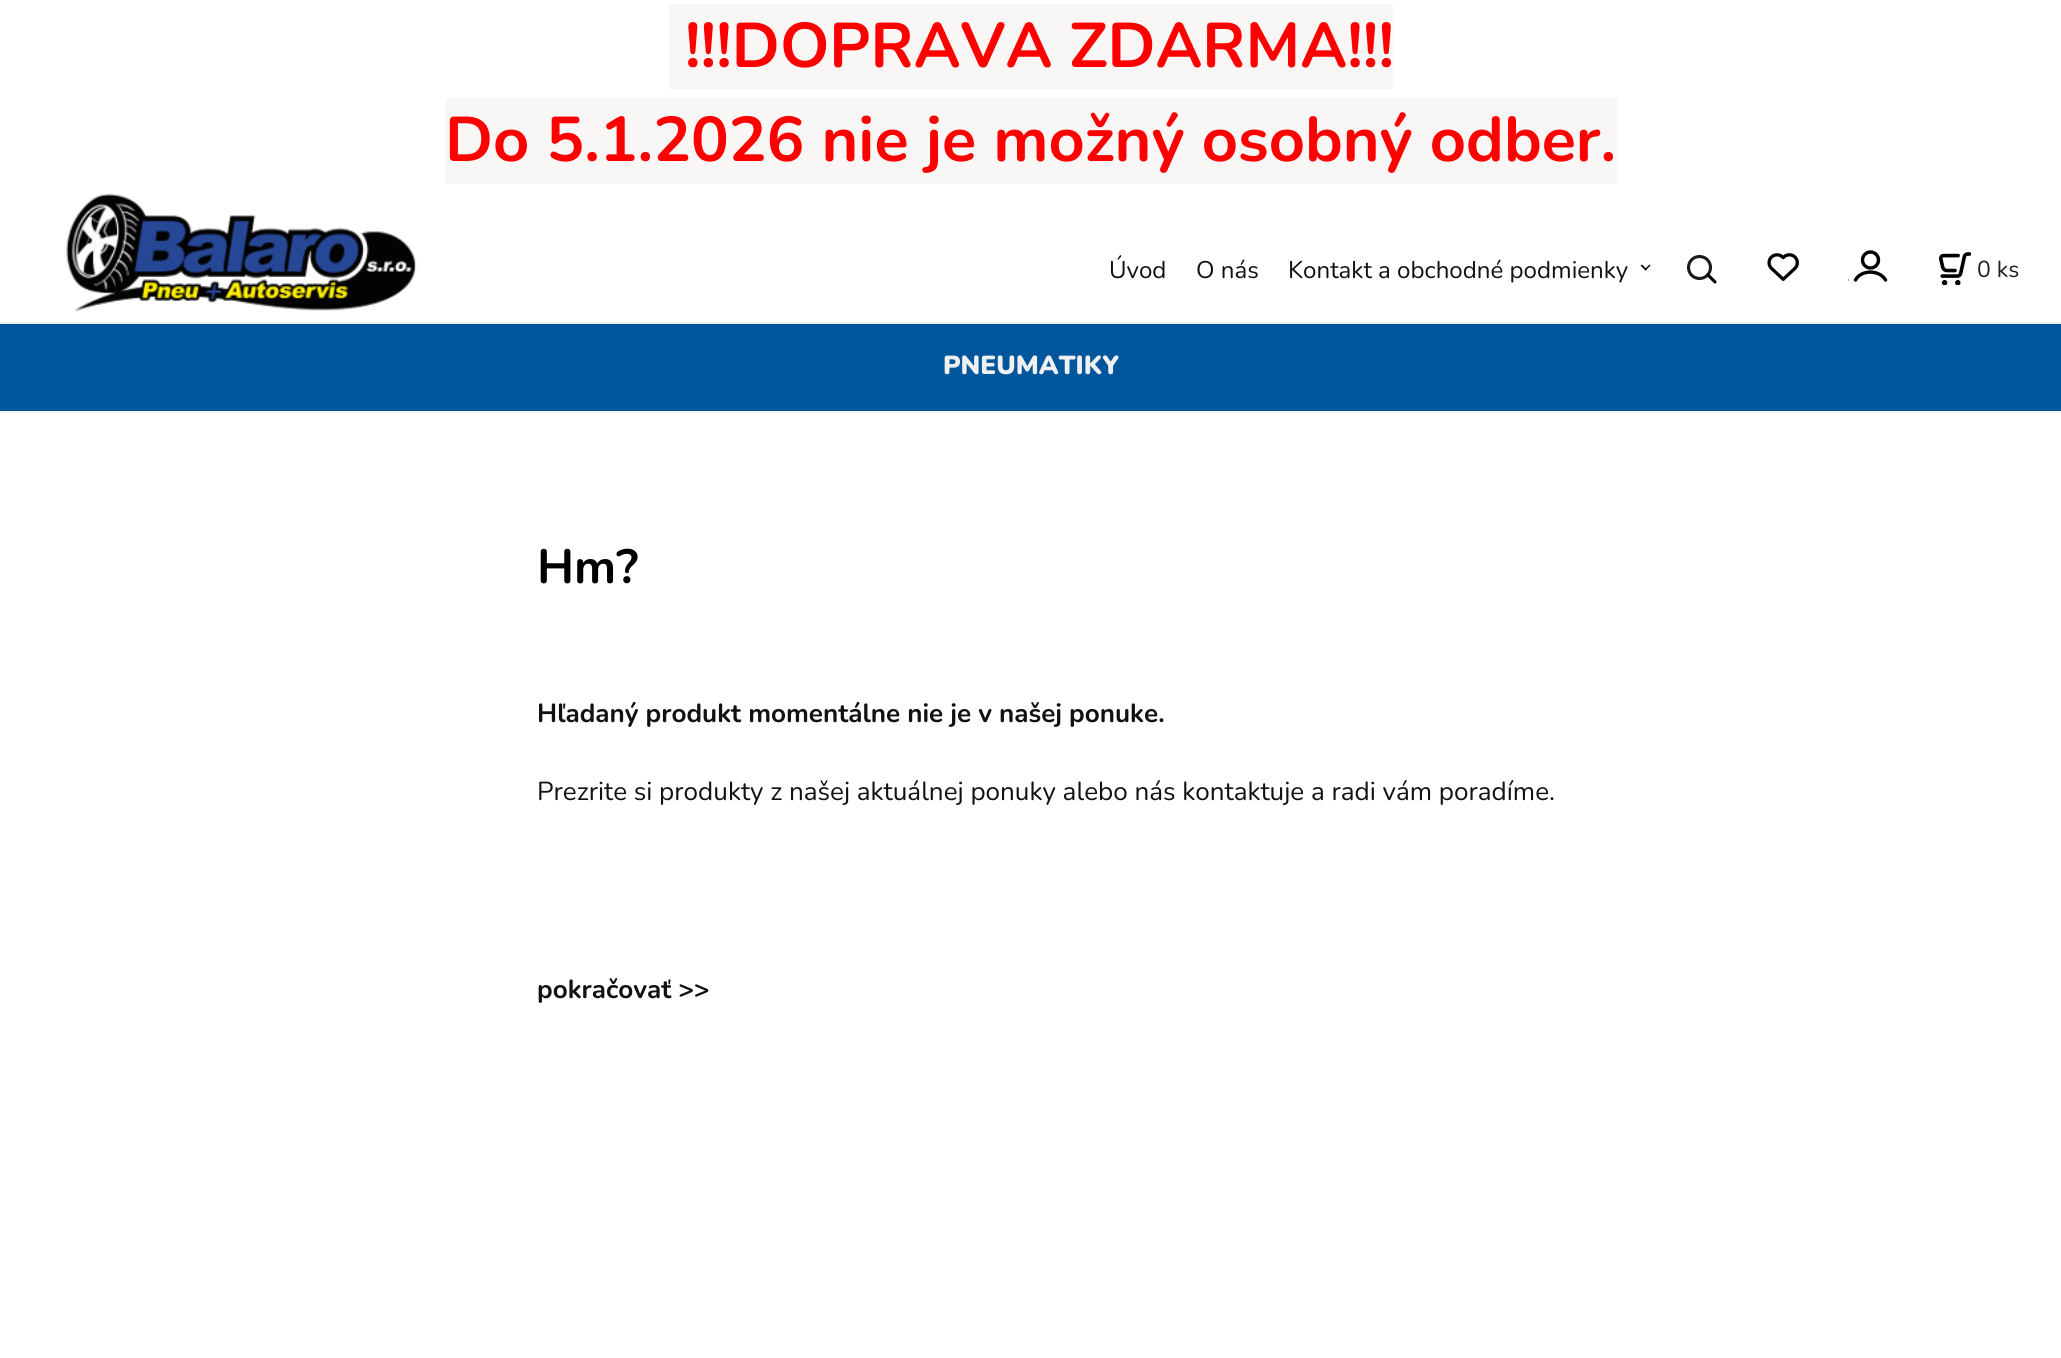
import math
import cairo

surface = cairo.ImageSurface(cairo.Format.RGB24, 2061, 1358)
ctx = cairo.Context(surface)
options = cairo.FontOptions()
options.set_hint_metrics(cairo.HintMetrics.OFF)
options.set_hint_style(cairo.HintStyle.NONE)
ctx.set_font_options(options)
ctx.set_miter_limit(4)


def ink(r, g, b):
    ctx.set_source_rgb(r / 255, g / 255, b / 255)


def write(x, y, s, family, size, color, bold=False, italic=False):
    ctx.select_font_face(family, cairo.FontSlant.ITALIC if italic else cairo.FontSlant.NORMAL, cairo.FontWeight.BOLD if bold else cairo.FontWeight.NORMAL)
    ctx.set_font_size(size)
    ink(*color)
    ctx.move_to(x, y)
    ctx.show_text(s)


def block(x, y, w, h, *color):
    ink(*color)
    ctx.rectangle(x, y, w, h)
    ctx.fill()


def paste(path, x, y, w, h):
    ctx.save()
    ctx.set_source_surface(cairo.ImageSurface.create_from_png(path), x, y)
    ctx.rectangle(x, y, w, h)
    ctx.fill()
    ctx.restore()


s1 = dict(family="Nunito", size=63, color=(255, 0, 0), bold=True)
s2 = dict(family="Nunito", size=24.1, color=(17, 17, 17))
s3 = dict(family="Nunito", size=23, color=(32, 32, 32))
s4 = dict(family="Nunito Black", size=26.05, color=(240, 240, 240))
s5 = dict(family="Nunito", size=48, color=(0, 0, 0), bold=True)
s6 = dict(family="Nunito", size=26.05, color=(17, 17, 17), bold=True)
s7 = dict(family="Nunito", size=26.05, color=(17, 17, 17))

ink(255, 255, 255)
ctx.paint()
block(669, 4, 724, 85, 249, 247, 245)
write(685, 67, "!!!DOPRAVA ZDARMA!!!", **s1)
block(445, 98, 1172, 86, 249, 247, 245)
write(445, 161, "Do 5.1.2026 nie je možný osobný odber.", **s1)
paste("pic1.png", 66, 193, 351, 119)
block(0, 324, 2061, 87, 0, 86, 157)
block(0, 322, 2061, 2, 240, 240, 240)
block(0, 411, 2061, 2, 240, 240, 240)
write(1109, 278, "Úvod", **s2)
write(1196, 278, "O nás", **s2)
write(1288, 278, "Kontakt a obchodné podmienky", **s2)
ink(0, 0, 0)
ctx.new_path()
ctx.move_to(1644.5, 269.5)
ctx.line_to(1649.5, 264.5)
ctx.line_to(1650.5, 265.5)
ctx.line_to(1645.5, 270.5)
ctx.close_path()
ctx.fill()
ctx.new_path()
ctx.move_to(1640.5, 265.5)
ctx.line_to(1642, 264.5)
ctx.line_to(1647, 269.5)
ctx.line_to(1645.5, 270.5)
ctx.close_path()
ctx.fill()
ctx.arc(1699.5, 267.5, 11, 0, 2 * math.pi)
ink(25, 25, 25)
ctx.set_line_width(3.1)
ctx.stroke()
ctx.new_path()
ctx.move_to(1708, 275)
ctx.line_to(1715, 282)
ink(0, 0, 0)
ctx.set_line_cap(cairo.LineCap.ROUND)
ctx.stroke()
paste("pic2.png", 1767, 253, 32, 28)
paste("pic3.png", 1848, 250, 40, 32)
paste("pic4.png", 1939, 252, 32, 33)
write(1977, 277, "0 ks", **s3)
write(943, 374, "PNEUMATIKY", **s4)
write(537, 583, "Hm?", **s5)
write(537, 722, "Hľadaný produkt momentálne nie je v našej ponuke.", **s6)
write(537, 800, "Prezrite si produkty z našej aktuálnej ponuky alebo nás kontaktuje a radi vám poradíme.", **s7)
write(537, 998, "pokračovať >>", **s6)
surface.write_to_png("screenshot.png")
